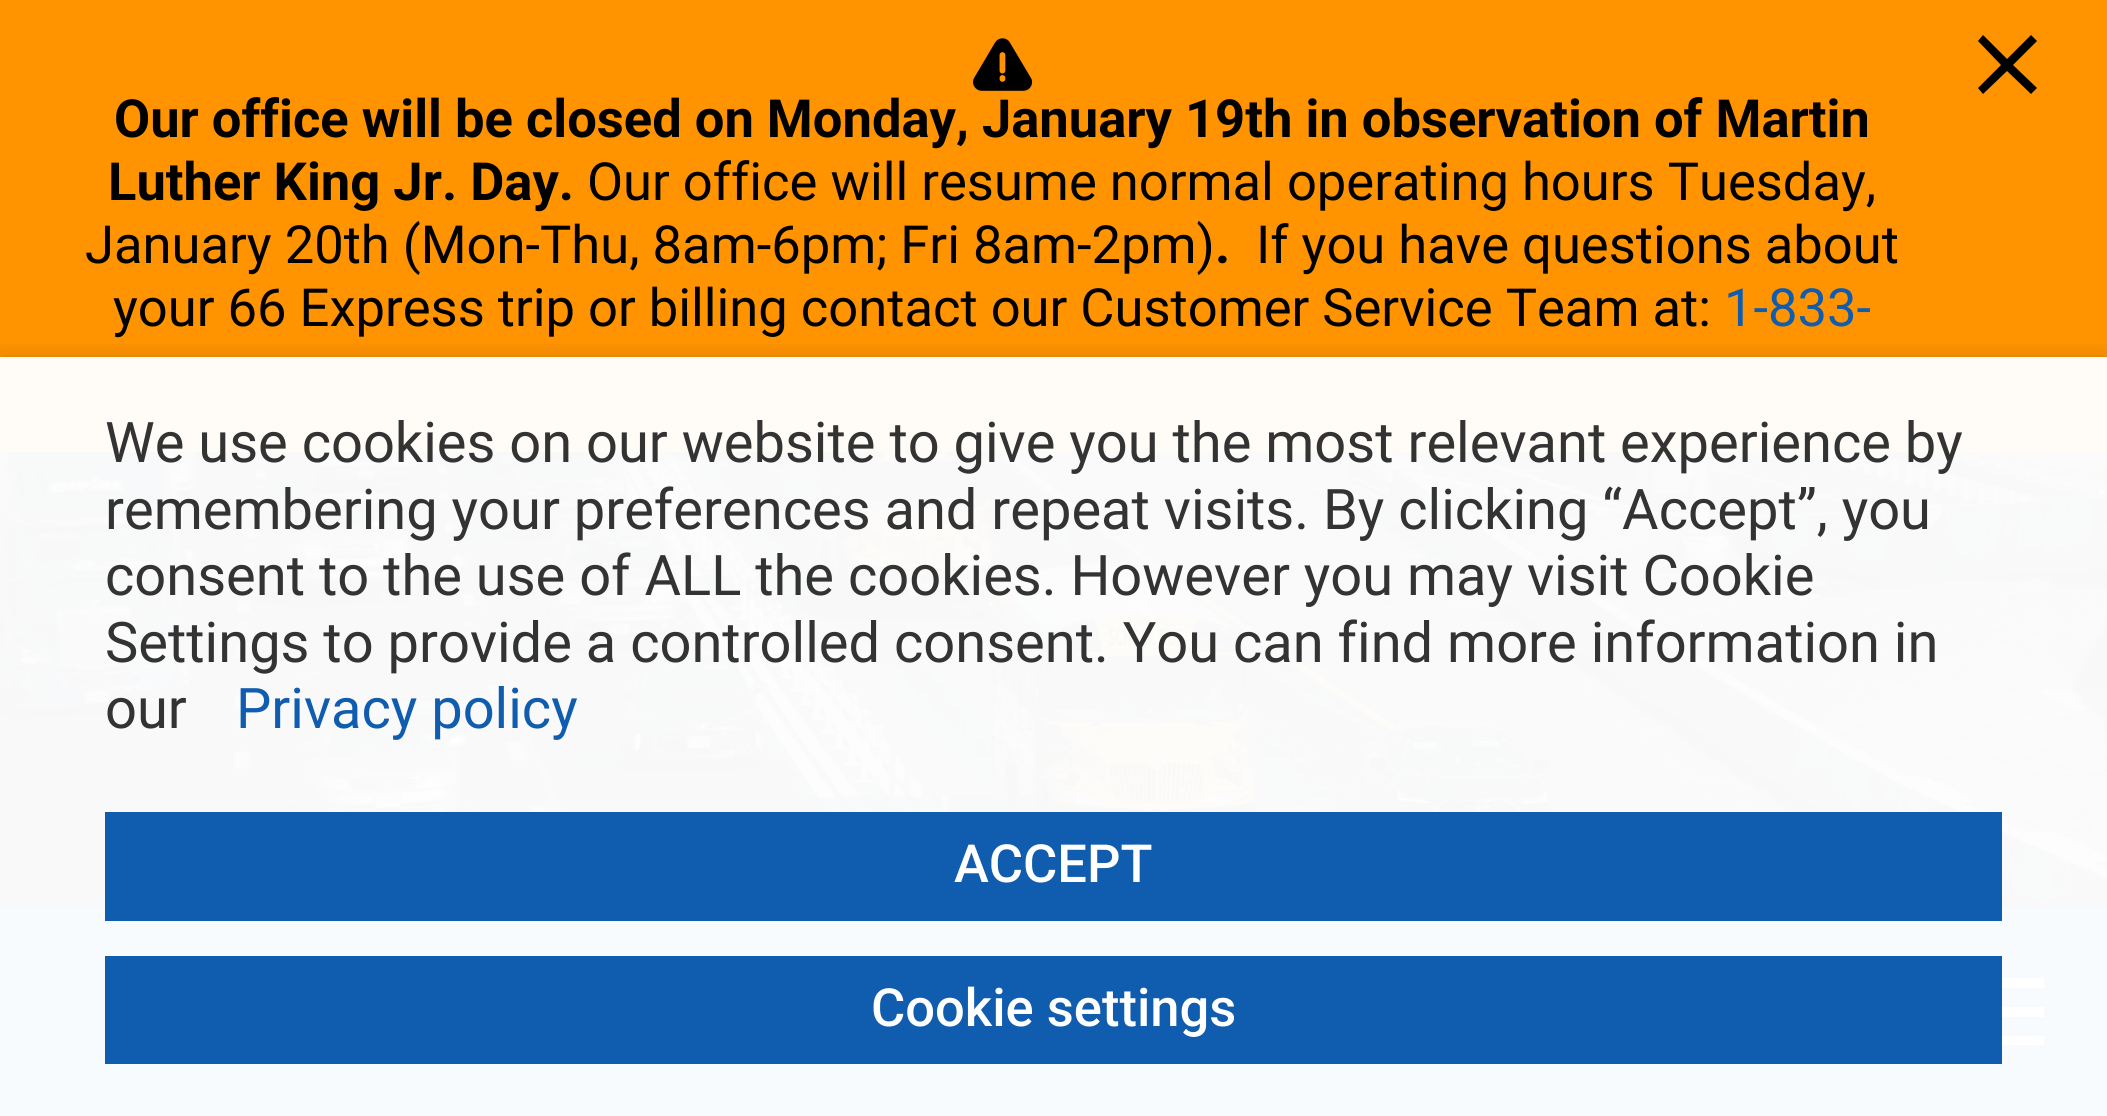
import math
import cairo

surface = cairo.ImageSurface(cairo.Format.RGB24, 2107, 1116)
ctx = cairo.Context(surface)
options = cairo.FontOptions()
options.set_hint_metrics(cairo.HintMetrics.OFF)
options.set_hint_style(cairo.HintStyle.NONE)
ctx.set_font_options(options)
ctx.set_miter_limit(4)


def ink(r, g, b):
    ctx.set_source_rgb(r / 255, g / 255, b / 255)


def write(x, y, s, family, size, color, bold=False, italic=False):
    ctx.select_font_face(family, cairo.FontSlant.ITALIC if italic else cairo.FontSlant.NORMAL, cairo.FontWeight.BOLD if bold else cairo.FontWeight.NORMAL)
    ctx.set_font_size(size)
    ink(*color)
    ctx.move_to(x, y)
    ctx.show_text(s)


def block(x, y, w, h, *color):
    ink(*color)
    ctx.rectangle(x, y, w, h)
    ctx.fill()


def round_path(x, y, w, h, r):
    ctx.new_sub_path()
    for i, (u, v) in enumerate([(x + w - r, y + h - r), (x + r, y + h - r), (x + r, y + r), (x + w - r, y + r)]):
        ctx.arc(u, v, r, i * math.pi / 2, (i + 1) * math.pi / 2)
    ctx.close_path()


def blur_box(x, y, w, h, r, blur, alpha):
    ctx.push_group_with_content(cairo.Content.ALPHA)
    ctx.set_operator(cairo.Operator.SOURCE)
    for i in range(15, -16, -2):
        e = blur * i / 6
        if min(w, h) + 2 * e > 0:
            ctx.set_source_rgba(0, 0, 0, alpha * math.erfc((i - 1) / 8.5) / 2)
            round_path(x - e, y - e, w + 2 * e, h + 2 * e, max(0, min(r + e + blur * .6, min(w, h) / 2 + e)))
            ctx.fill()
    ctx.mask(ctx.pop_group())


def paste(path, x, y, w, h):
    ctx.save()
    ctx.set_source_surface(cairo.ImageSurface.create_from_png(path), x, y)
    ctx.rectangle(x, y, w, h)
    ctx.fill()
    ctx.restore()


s1 = dict(family="Roboto", size=52.5, color=(0, 0, 0), bold=True)
s2 = dict(family="Roboto", size=52.5, color=(0, 0, 0))
s3 = dict(family="Roboto", size=52.5, color=(16, 92, 174))
s4 = dict(family="Roboto", size=56, color=(51, 51, 51))
s5 = dict(family="Roboto", size=56, color=(16, 92, 174))
s6 = dict(family="Roboto Medium", size=52.5, color=(255, 255, 255))

ink(255, 255, 255)
ctx.paint()
block(0, 0, 2107, 452, 255, 147, 0)
ink(0, 0, 0)
ctx.new_path()
ctx.move_to(2013, 65)
ctx.line_to(2037, 88)
ctx.line_to(2031, 94)
ctx.line_to(2007, 71)
ctx.line_to(1983, 94)
ctx.line_to(1978, 88)
ctx.line_to(2001, 65)
ctx.line_to(1978, 41)
ctx.line_to(1983, 35)
ctx.line_to(2007, 59)
ctx.line_to(2031, 35)
ctx.line_to(2037, 41)
ctx.close_path()
ctx.fill()
paste("pic1.png", 973, 38, 60, 53)
write(114, 137, "Our office will be closed on Monday, January 19th in observation of Martin", **s1)
write(108, 200, "Luther King Jr. Day.", **s1)
write(587, 200, "Our office will resume normal operating hours Tuesday,", **s2)
write(85, 263, "January 20th (Mon-Thu, 8am-6pm; Fri 8am-2pm)", **s2)
write(1215, 263, ".", **s1)
write(1256, 263, "If you have questions about", **s2)
write(113, 326, "your 66 Express trip or billing contact our Customer Service Team at:", **s2)
write(1724, 326, "1-833-", **s3)
paste("pic2.png", 0, 452, 2107, 455)
ink(3, 3, 3)
blur_box(0, 907, 2107, 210, 0, 7, 0.25)
block(0, 907, 2107, 209, 16, 92, 174)
ink(255, 255, 255)
ctx.new_path()
ctx.move_to(1925, 978)
ctx.line_to(2044, 978)
ctx.line_to(2044, 988)
ctx.line_to(1925, 988)
ctx.close_path()
ctx.move_to(1925, 1007)
ctx.line_to(2044, 1007)
ctx.line_to(2044, 1017)
ctx.line_to(1925, 1017)
ctx.close_path()
ctx.move_to(1925, 1036)
ctx.line_to(2044, 1036)
ctx.line_to(2044, 1045)
ctx.line_to(1925, 1045)
ctx.close_path()
ctx.fill()
ctx.save()
ctx.rectangle(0, 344, 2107, 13)
ctx.clip()
ink(0, 0, 0)
blur_box(0, 375, 2107, 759, 0, 17.5, 0.5)
ctx.restore()
ctx.set_source_rgba(1, 1, 1, 0.97)
ctx.rectangle(0, 357, 2107, 759)
ctx.fill()
write(105, 462, "We use cookies on our website to give you the most relevant experience by", **s4)
write(105, 529, "remembering your preferences and repeat visits. By clicking “Accept”, you", **s4)
write(105, 595, "consent to the use of ALL the cookies. However you may visit Cookie", **s4)
write(105, 662, "Settings to provide a controlled consent. You can find more information in", **s4)
write(105, 728, "our", **s4)
write(236, 728, "Privacy policy", **s5)
block(105, 812, 1897, 109, 16, 92, 174)
write(954, 882, "ACCEPT", **s6)
block(105, 956, 1897, 108, 16, 92, 174)
write(871, 1026, "Cookie settings", **s6)
surface.write_to_png("screenshot.png")
